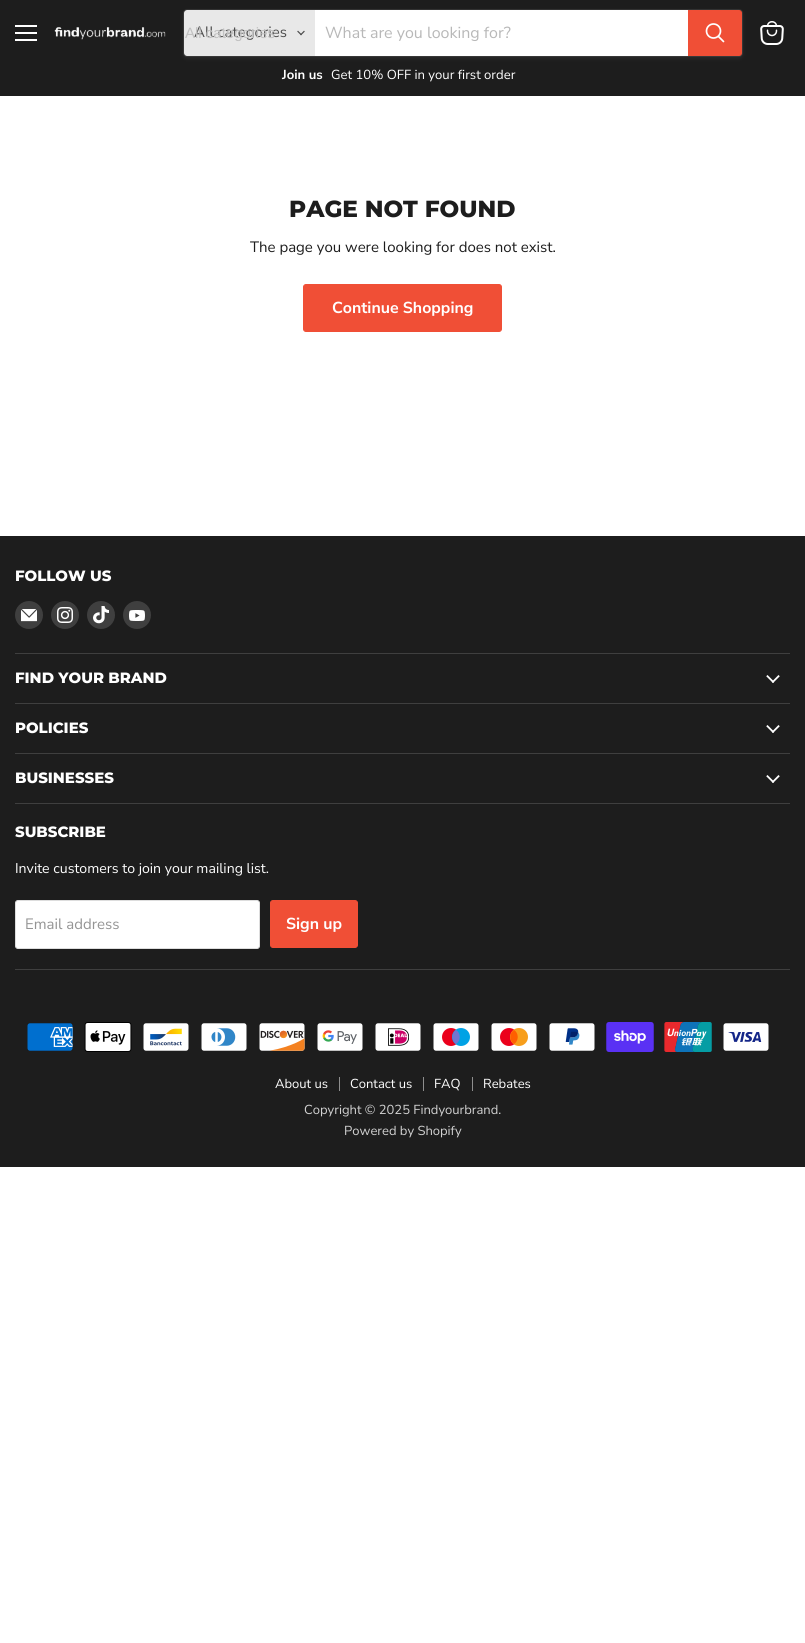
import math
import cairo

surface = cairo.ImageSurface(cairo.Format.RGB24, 805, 1643)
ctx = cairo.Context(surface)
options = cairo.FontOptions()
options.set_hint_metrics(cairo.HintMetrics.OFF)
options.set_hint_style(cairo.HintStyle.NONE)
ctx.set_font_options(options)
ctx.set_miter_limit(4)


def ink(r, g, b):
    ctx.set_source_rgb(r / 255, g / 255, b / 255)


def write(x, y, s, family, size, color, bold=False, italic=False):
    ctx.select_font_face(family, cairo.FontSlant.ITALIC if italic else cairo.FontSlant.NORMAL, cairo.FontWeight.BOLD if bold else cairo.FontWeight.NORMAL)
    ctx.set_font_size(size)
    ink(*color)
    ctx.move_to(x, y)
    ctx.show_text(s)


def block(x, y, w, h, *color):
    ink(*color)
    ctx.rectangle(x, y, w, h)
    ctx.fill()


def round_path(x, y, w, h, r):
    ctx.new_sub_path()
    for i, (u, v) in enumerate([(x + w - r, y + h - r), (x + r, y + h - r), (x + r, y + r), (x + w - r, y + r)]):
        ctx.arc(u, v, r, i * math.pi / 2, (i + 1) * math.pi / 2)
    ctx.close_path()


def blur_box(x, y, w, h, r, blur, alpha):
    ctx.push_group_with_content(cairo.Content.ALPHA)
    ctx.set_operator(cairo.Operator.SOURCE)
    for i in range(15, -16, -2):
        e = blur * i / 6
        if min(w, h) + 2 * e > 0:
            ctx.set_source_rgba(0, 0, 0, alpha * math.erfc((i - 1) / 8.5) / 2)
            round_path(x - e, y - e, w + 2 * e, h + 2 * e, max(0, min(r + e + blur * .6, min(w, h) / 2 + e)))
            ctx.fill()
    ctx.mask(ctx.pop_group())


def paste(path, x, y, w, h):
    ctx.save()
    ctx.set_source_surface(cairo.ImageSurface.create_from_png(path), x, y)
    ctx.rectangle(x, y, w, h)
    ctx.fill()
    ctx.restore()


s1 = dict(family="Nunito Sans", size=15, color=(77, 77, 77))
s2 = dict(family="Liberation Sans", size=15, color=(193, 193, 193))
s3 = dict(family="Nunito Sans", size=16, color=(184, 184, 184))
s4 = dict(family="Nunito Sans", size=13.1, color=(255, 255, 255), bold=True)
s5 = dict(family="Nunito Sans", size=13.1, color=(255, 255, 255))
s6 = dict(family="Montserrat ExtraBold", size=23.25, color=(29, 29, 29))
s7 = dict(family="Nunito Sans", size=15, color=(29, 29, 29))
s8 = dict(family="Nunito Sans", size=15.9, color=(255, 255, 255), bold=True)
s9 = dict(family="Montserrat ExtraBold", size=14.9, color=(255, 255, 255))
s10 = dict(family="Nunito Sans", size=14.1, color=(255, 255, 255))
s11 = dict(family="Nunito Sans", size=15, color=(148, 148, 148))
s12 = dict(family="Nunito Sans", size=13, color=(255, 255, 255))
s13 = dict(family="Nunito Sans", size=13, color=(210, 210, 210))

ink(255, 255, 255)
ctx.paint()
block(0, 0, 805, 96, 29, 29, 29)
block(15, 25, 22, 2, 255, 255, 255)
block(15, 32, 22, 2, 255, 255, 255)
block(15, 39, 22, 2, 255, 255, 255)
paste("pic1.png", 54, 27, 112, 13)
ink(128, 128, 128)
blur_box(183, 11, 560, 48, 4, 1.5, 0.11)
round_path(183.5, 9.5, 559, 47, 3.5)
ctx.set_source_rgba(0.502, 0.502, 0.502, 0.2)
ctx.set_line_width(1)
ctx.stroke()
ink(232, 232, 232)
ctx.new_path()
ctx.move_to(187, 10)
ctx.line_to(315, 10)
ctx.line_to(315, 56)
ctx.line_to(187, 56)
ctx.curve_to(185.5, 56, 184, 54.5, 184, 53)
ctx.line_to(184, 13)
ctx.curve_to(184, 11.5, 185.5, 10, 187, 10)
ctx.close_path()
ctx.fill()
write(194, 37, "All categories", **s1)
write(185, 38, "All categories", **s2)
paste("pic2.png", 297, 30, 8, 6)
block(315, 10, 373, 46, 255, 255, 255)
write(325, 38, "What are you looking for?", **s3)
ink(240, 79, 54)
ctx.new_path()
ctx.move_to(688.5, 10.5)
ctx.line_to(739, 10.5)
ctx.curve_to(740.5, 10.5, 741.5, 11.5, 741.5, 13)
ctx.line_to(741.5, 53)
ctx.curve_to(741.5, 54.5, 740.5, 55.5, 739, 55.5)
ctx.line_to(688.5, 55.5)
ctx.close_path()
ctx.fill_preserve()
ctx.stroke()
ctx.new_path()
ctx.move_to(723.5, 41.5)
ctx.line_to(718.5, 36.5)
ink(255, 255, 255)
ctx.set_line_width(1.7)
ctx.set_line_cap(cairo.LineCap.ROUND)
ctx.stroke()
ctx.arc(713.5, 31, 7, 0, 2 * math.pi)
ctx.set_line_cap(cairo.LineCap.BUTT)
ctx.stroke()
write(282, 79, "Join us", **s4)
write(331, 79, "Get 10% OFF in your first order", **s5)
paste("pic3.png", 760, 21, 24, 24)
write(289, 217, "PAGE NOT FOUND", **s6)
write(250, 252, "The page you were looking for does not exist.", **s7)
ink(240, 79, 54)
round_path(303.5, 284.5, 198, 47, 2.5)
ctx.fill_preserve()
ctx.set_line_width(1)
ctx.stroke()
write(332, 313, "Continue Shopping", **s8)
block(0, 536, 805, 631, 29, 29, 29)
block(15, 653, 775, 1, 63, 63, 63)
write(15, 581, "FOLLOW US", **s9)
ink(63, 63, 63)
ctx.new_path()
ctx.arc(29, 615, 14, 0, 2 * math.pi)
ctx.fill()
paste("pic4.png", 21, 609, 16, 13)
ctx.arc(65, 615, 14, 0, 2 * math.pi)
ctx.fill()
paste("pic5.png", 57, 607, 16, 16)
ctx.arc(101, 615, 14, 0, 2 * math.pi)
ctx.fill()
paste("pic6.png", 93, 606, 16, 18)
ctx.arc(137, 615, 14, 0, 2 * math.pi)
ctx.fill()
paste("pic7.png", 129, 610, 16, 11)
block(15, 703, 775, 1, 63, 63, 63)
write(15, 683, "FIND YOUR BRAND", **s9)
paste("pic8.png", 766, 675, 14, 8)
block(15, 753, 775, 1, 63, 63, 63)
write(15, 733, "POLICIES", **s9)
paste("pic8.png", 766, 725, 14, 8)
block(15, 803, 775, 1, 63, 63, 63)
write(15, 783, "BUSINESSES", **s9)
paste("pic8.png", 766, 775, 14, 8)
block(15, 969, 775, 1, 63, 63, 63)
write(15, 837, "SUBSCRIBE", **s9)
write(15, 873, "Invite customers to join your mailing list.", **s10)
round_path(15.5, 900.5, 244, 48, 2.5)
ctx.fill_preserve()
ink(221, 221, 221)
ctx.stroke()
write(25, 929, "Email address", **s11)
ink(240, 79, 54)
round_path(270.5, 900.5, 87, 47, 2.5)
ctx.fill_preserve()
ctx.stroke()
write(286, 929, "Sign up", **s8)
paste("pic9.png", 27, 1023, 46, 28)
paste("pic10.png", 84, 1022, 48, 30)
paste("pic11.png", 143, 1023, 46, 28)
paste("pic12.png", 201, 1023, 46, 28)
paste("pic13.png", 259, 1023, 46, 28)
paste("pic14.png", 317, 1023, 46, 28)
paste("pic15.png", 375, 1023, 46, 28)
paste("pic16.png", 433, 1023, 46, 28)
paste("pic17.png", 491, 1023, 46, 28)
paste("pic18.png", 549, 1023, 46, 28)
paste("pic19.png", 606, 1022, 48, 30)
paste("pic20.png", 664, 1022, 48, 30)
paste("pic21.png", 723, 1023, 46, 28)
block(339, 1077, 1, 14, 142, 142, 142)
write(275, 1088, "About us", **s12)
block(423, 1077, 1, 14, 142, 142, 142)
write(350, 1088, "Contact us", **s12)
block(472, 1077, 1, 14, 142, 142, 142)
write(434, 1088, "FAQ", **s12)
write(483, 1088, "Rebates", **s12)
write(304, 1114, "Copyright © 2025 Findyourbrand.", **s13)
write(344, 1135, "Powered by Shopify", **s13)
surface.write_to_png("screenshot.png")
